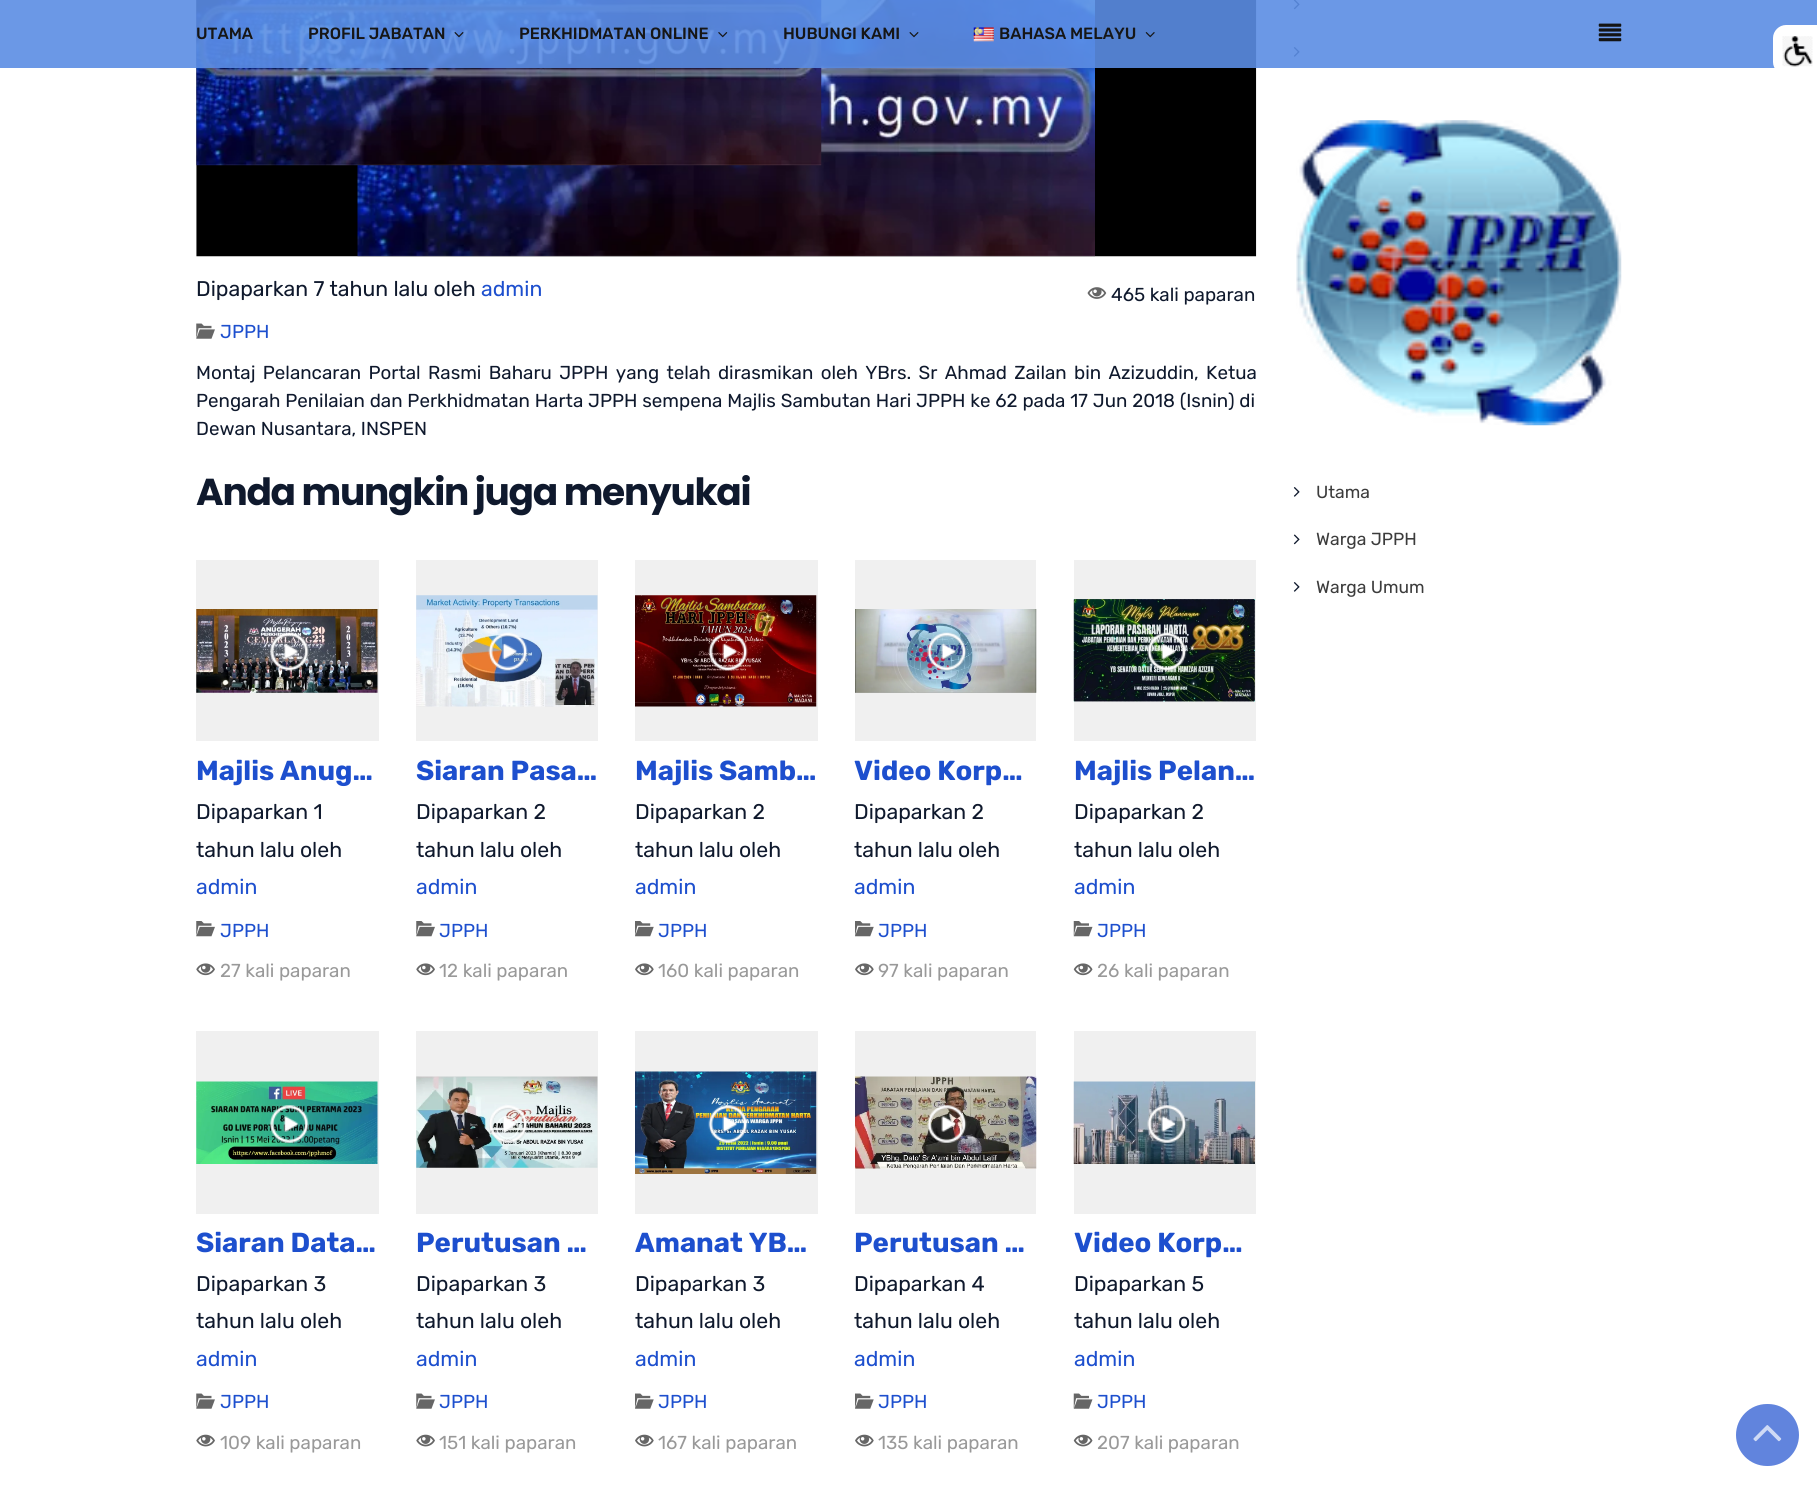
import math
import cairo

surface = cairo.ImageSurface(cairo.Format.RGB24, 1817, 1491)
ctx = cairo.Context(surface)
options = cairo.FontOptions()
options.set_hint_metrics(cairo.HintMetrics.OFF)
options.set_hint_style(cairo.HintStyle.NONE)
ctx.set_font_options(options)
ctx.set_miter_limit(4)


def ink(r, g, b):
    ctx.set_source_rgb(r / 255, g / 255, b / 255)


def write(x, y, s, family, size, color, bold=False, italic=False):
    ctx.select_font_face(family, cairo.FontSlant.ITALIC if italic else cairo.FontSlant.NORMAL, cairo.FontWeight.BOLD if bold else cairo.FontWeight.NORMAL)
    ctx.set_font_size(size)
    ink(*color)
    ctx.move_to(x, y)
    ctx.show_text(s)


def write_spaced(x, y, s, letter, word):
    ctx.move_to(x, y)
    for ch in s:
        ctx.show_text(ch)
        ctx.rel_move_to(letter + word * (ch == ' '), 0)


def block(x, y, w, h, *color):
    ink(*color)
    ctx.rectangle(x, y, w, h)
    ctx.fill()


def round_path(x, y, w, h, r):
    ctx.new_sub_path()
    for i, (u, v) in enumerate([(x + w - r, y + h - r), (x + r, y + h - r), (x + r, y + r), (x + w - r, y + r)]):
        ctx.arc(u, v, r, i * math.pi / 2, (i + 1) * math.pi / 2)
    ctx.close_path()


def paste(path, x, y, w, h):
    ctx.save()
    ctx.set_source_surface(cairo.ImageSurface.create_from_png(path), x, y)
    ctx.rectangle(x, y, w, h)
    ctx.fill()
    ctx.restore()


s1 = dict(family="Rubik Medium", size=16.25, color=(22, 22, 22))
s2 = dict(family="Rubik", size=21.25, color=(15, 25, 45))
s3 = dict(family="Rubik", size=21.25, color=(29, 79, 206))
s4 = dict(family="Rubik", size=18.75, color=(29, 79, 206))
s5 = dict(family="Rubik", size=18.75, color=(15, 25, 45))
s6 = dict(family="Rubik", size=27.5, color=(29, 79, 206), bold=True)
s7 = dict(family="Rubik", size=18.75, color=(153, 153, 153))
s8 = dict(family="Rubik", size=17.5, color=(60, 60, 60))

ink(255, 255, 255)
ctx.paint()
paste("pic7.png", 196, 0, 1061, 257)
paste("pic41.png", 1293, 0, 7, 10)
paste("pic42.png", 1293, 47, 7, 10)
ctx.set_source_rgba(0.357, 0.553, 0.894, 0.9)
ctx.rectangle(0, 0, 1817, 68)
ctx.fill()
write(196, 39, "UTAMA", **s1)
write(308, 39, "PROFIL JABATAN", **s1)
paste("pic1.png", 454, 32, 10, 6)
write(519, 39, "PERKHIDMATAN ONLINE", **s1)
paste("pic2.png", 718, 32, 10, 6)
write(783, 39, "HUBUNGI KAMI", **s1)
paste("pic3.png", 909, 32, 10, 6)
paste("pic4.png", 973, 27, 21, 15)
write(999, 39, "BAHASA MELAYU", **s1)
paste("pic5.png", 1145, 32, 10, 6)
paste("pic6.png", 1598, 23, 24, 19)
write(196, 296, "Dipaparkan 7 tahun lalu oleh", **s2)
write(481, 296, "admin", **s3)
paste("pic8.png", 196, 323, 19, 16)
write(220, 338, "JPPH", **s4)
paste("pic9.png", 1087, 287, 20, 12)
write(1111, 301, "465 kali paparan", **s5)
write_spaced(196, 379, "Montaj Pelancaran Portal Rasmi Baharu JPPH yang telah dirasmikan oleh YBrs. Sr Ahmad Zailan bin Azizuddin, Ketua", 0, 2.75)
write_spaced(196, 407, "Pengarah Penilaian dan Perkhidmatan Harta JPPH sempena Majlis Sambutan Hari JPPH ke 62 pada 17 Jun 2018 (Isnin) di", 0, 0.25)
write(196, 435, "Dewan Nusantara, INSPEN", **s5)
ctx.select_font_face("Poppins", cairo.FontSlant.NORMAL, cairo.FontWeight.BOLD)
ctx.set_font_size(37.5)
write_spaced(196, 505, "Anda mungkin juga menyukai", -1.25, 0)
block(196, 560, 183, 181, 240, 240, 240)
paste("pic10.png", 196, 609, 182, 84)
paste("pic11.png", 269, 632, 40, 40)
write(196, 780, "Majlis Anug…", **s6)
write(196, 819, "Dipaparkan 1", **s2)
write(196, 857, "tahun lalu oleh", **s2)
write(196, 894, "admin", **s3)
paste("pic12.png", 196, 921, 19, 16)
write(220, 937, "JPPH", **s4)
paste("pic13.png", 196, 963, 19, 13)
write(220, 977, "27 kali paparan", **s7)
block(416, 560, 182, 181, 240, 240, 240)
paste("pic14.png", 416, 595, 182, 112)
paste("pic15.png", 488, 632, 40, 40)
write(416, 780, "Siaran Pasa…", **s6)
write(416, 819, "Dipaparkan 2", **s2)
write(416, 857, "tahun lalu oleh", **s2)
write(416, 894, "admin", **s3)
paste("pic12.png", 416, 921, 19, 16)
write(439, 937, "JPPH", **s4)
paste("pic13.png", 416, 963, 19, 13)
write(439, 977, "12 kali paparan", **s7)
block(635, 560, 183, 181, 240, 240, 240)
paste("pic16.png", 635, 595, 182, 112)
paste("pic17.png", 708, 632, 40, 39)
write(635, 780, "Majlis Samb…", **s6)
write(635, 819, "Dipaparkan 2", **s2)
write(635, 857, "tahun lalu oleh", **s2)
write(635, 894, "admin", **s3)
paste("pic18.png", 635, 921, 19, 16)
write(658, 937, "JPPH", **s4)
paste("pic19.png", 635, 963, 19, 13)
write(658, 977, "160 kali paparan", **s7)
block(855, 560, 181, 181, 240, 240, 240)
paste("pic20.png", 855, 609, 182, 84)
paste("pic21.png", 927, 632, 40, 40)
write(854, 780, "Video Korp…", **s6)
write(854, 819, "Dipaparkan 2", **s2)
write(854, 857, "tahun lalu oleh", **s2)
write(854, 894, "admin", **s3)
paste("pic18.png", 855, 921, 19, 16)
write(878, 937, "JPPH", **s4)
paste("pic19.png", 855, 963, 19, 13)
write(878, 977, "97 kali paparan", **s7)
block(1074, 560, 182, 181, 240, 240, 240)
paste("pic22.png", 1073, 599, 182, 103)
paste("pic23.png", 1147, 632, 40, 40)
write(1074, 780, "Majlis Pelan…", **s6)
write(1074, 819, "Dipaparkan 2", **s2)
write(1074, 857, "tahun lalu oleh", **s2)
write(1074, 894, "admin", **s3)
paste("pic24.png", 1073, 921, 20, 16)
write(1097, 937, "JPPH", **s4)
paste("pic25.png", 1073, 963, 20, 13)
write(1097, 977, "26 kali paparan", **s7)
block(196, 1031, 183, 183, 240, 240, 240)
paste("pic26.png", 196, 1081, 182, 83)
paste("pic27.png", 269, 1105, 40, 39)
write(196, 1252, "Siaran Data…", **s6)
write(196, 1291, "Dipaparkan 3", **s2)
write(196, 1328, "tahun lalu oleh", **s2)
write(196, 1366, "admin", **s3)
paste("pic8.png", 196, 1393, 19, 16)
write(220, 1408, "JPPH", **s4)
paste("pic28.png", 196, 1434, 19, 13)
write(220, 1449, "109 kali paparan", **s7)
block(416, 1031, 182, 183, 240, 240, 240)
paste("pic29.png", 416, 1076, 182, 92)
paste("pic30.png", 489, 1105, 39, 39)
write(416, 1252, "Perutusan …", **s6)
write(416, 1291, "Dipaparkan 3", **s2)
write(416, 1328, "tahun lalu oleh", **s2)
write(416, 1366, "admin", **s3)
paste("pic8.png", 416, 1393, 19, 16)
write(439, 1408, "JPPH", **s4)
paste("pic28.png", 416, 1434, 19, 13)
write(439, 1449, "151 kali paparan", **s7)
block(635, 1031, 183, 183, 240, 240, 240)
paste("pic31.png", 635, 1071, 182, 103)
paste("pic32.png", 708, 1105, 40, 39)
write(635, 1252, "Amanat YB…", **s6)
write(635, 1291, "Dipaparkan 3", **s2)
write(635, 1328, "tahun lalu oleh", **s2)
write(635, 1366, "admin", **s3)
paste("pic33.png", 635, 1393, 19, 16)
write(658, 1408, "JPPH", **s4)
paste("pic34.png", 635, 1434, 19, 13)
write(658, 1449, "167 kali paparan", **s7)
block(855, 1031, 181, 183, 240, 240, 240)
paste("pic35.png", 855, 1076, 182, 93)
paste("pic36.png", 927, 1105, 40, 39)
write(854, 1252, "Perutusan …", **s6)
write(854, 1291, "Dipaparkan 4", **s2)
write(854, 1328, "tahun lalu oleh", **s2)
write(854, 1366, "admin", **s3)
paste("pic33.png", 855, 1393, 19, 16)
write(878, 1408, "JPPH", **s4)
paste("pic34.png", 855, 1434, 19, 13)
write(878, 1449, "135 kali paparan", **s7)
block(1074, 1031, 182, 183, 240, 240, 240)
paste("pic37.png", 1073, 1081, 182, 83)
paste("pic38.png", 1147, 1105, 40, 39)
write(1074, 1252, "Video Korp…", **s6)
write(1074, 1291, "Dipaparkan 5", **s2)
write(1074, 1328, "tahun lalu oleh", **s2)
write(1074, 1366, "admin", **s3)
paste("pic39.png", 1073, 1393, 20, 16)
write(1097, 1408, "JPPH", **s4)
paste("pic40.png", 1073, 1434, 20, 13)
write(1097, 1449, "207 kali paparan", **s7)
paste("pic43.png", 1296, 120, 326, 306)
paste("pic42.png", 1293, 487, 7, 10)
write(1316, 498, "Utama", **s8)
paste("pic44.png", 1293, 534, 7, 11)
write(1316, 545, "Warga JPPH", **s8)
paste("pic42.png", 1293, 582, 7, 10)
write(1316, 593, "Warga Umum", **s8)
ink(255, 255, 255)
ctx.new_path()
ctx.move_to(1786, 25)
ctx.line_to(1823, 25)
ctx.line_to(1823, 75)
ctx.line_to(1786, 75)
ctx.curve_to(1779, 75, 1773, 69, 1773, 62)
ctx.line_to(1773, 38)
ctx.curve_to(1773, 31, 1779, 25, 1786, 25)
ctx.close_path()
ctx.fill()
paste("pic45.png", 1782, 36, 31, 31)
ink(97, 132, 221)
round_path(1736, 1404, 63, 62, 31)
ctx.fill()
paste("pic46.png", 1753, 1425, 29, 17)
surface.write_to_png("screenshot.png")
